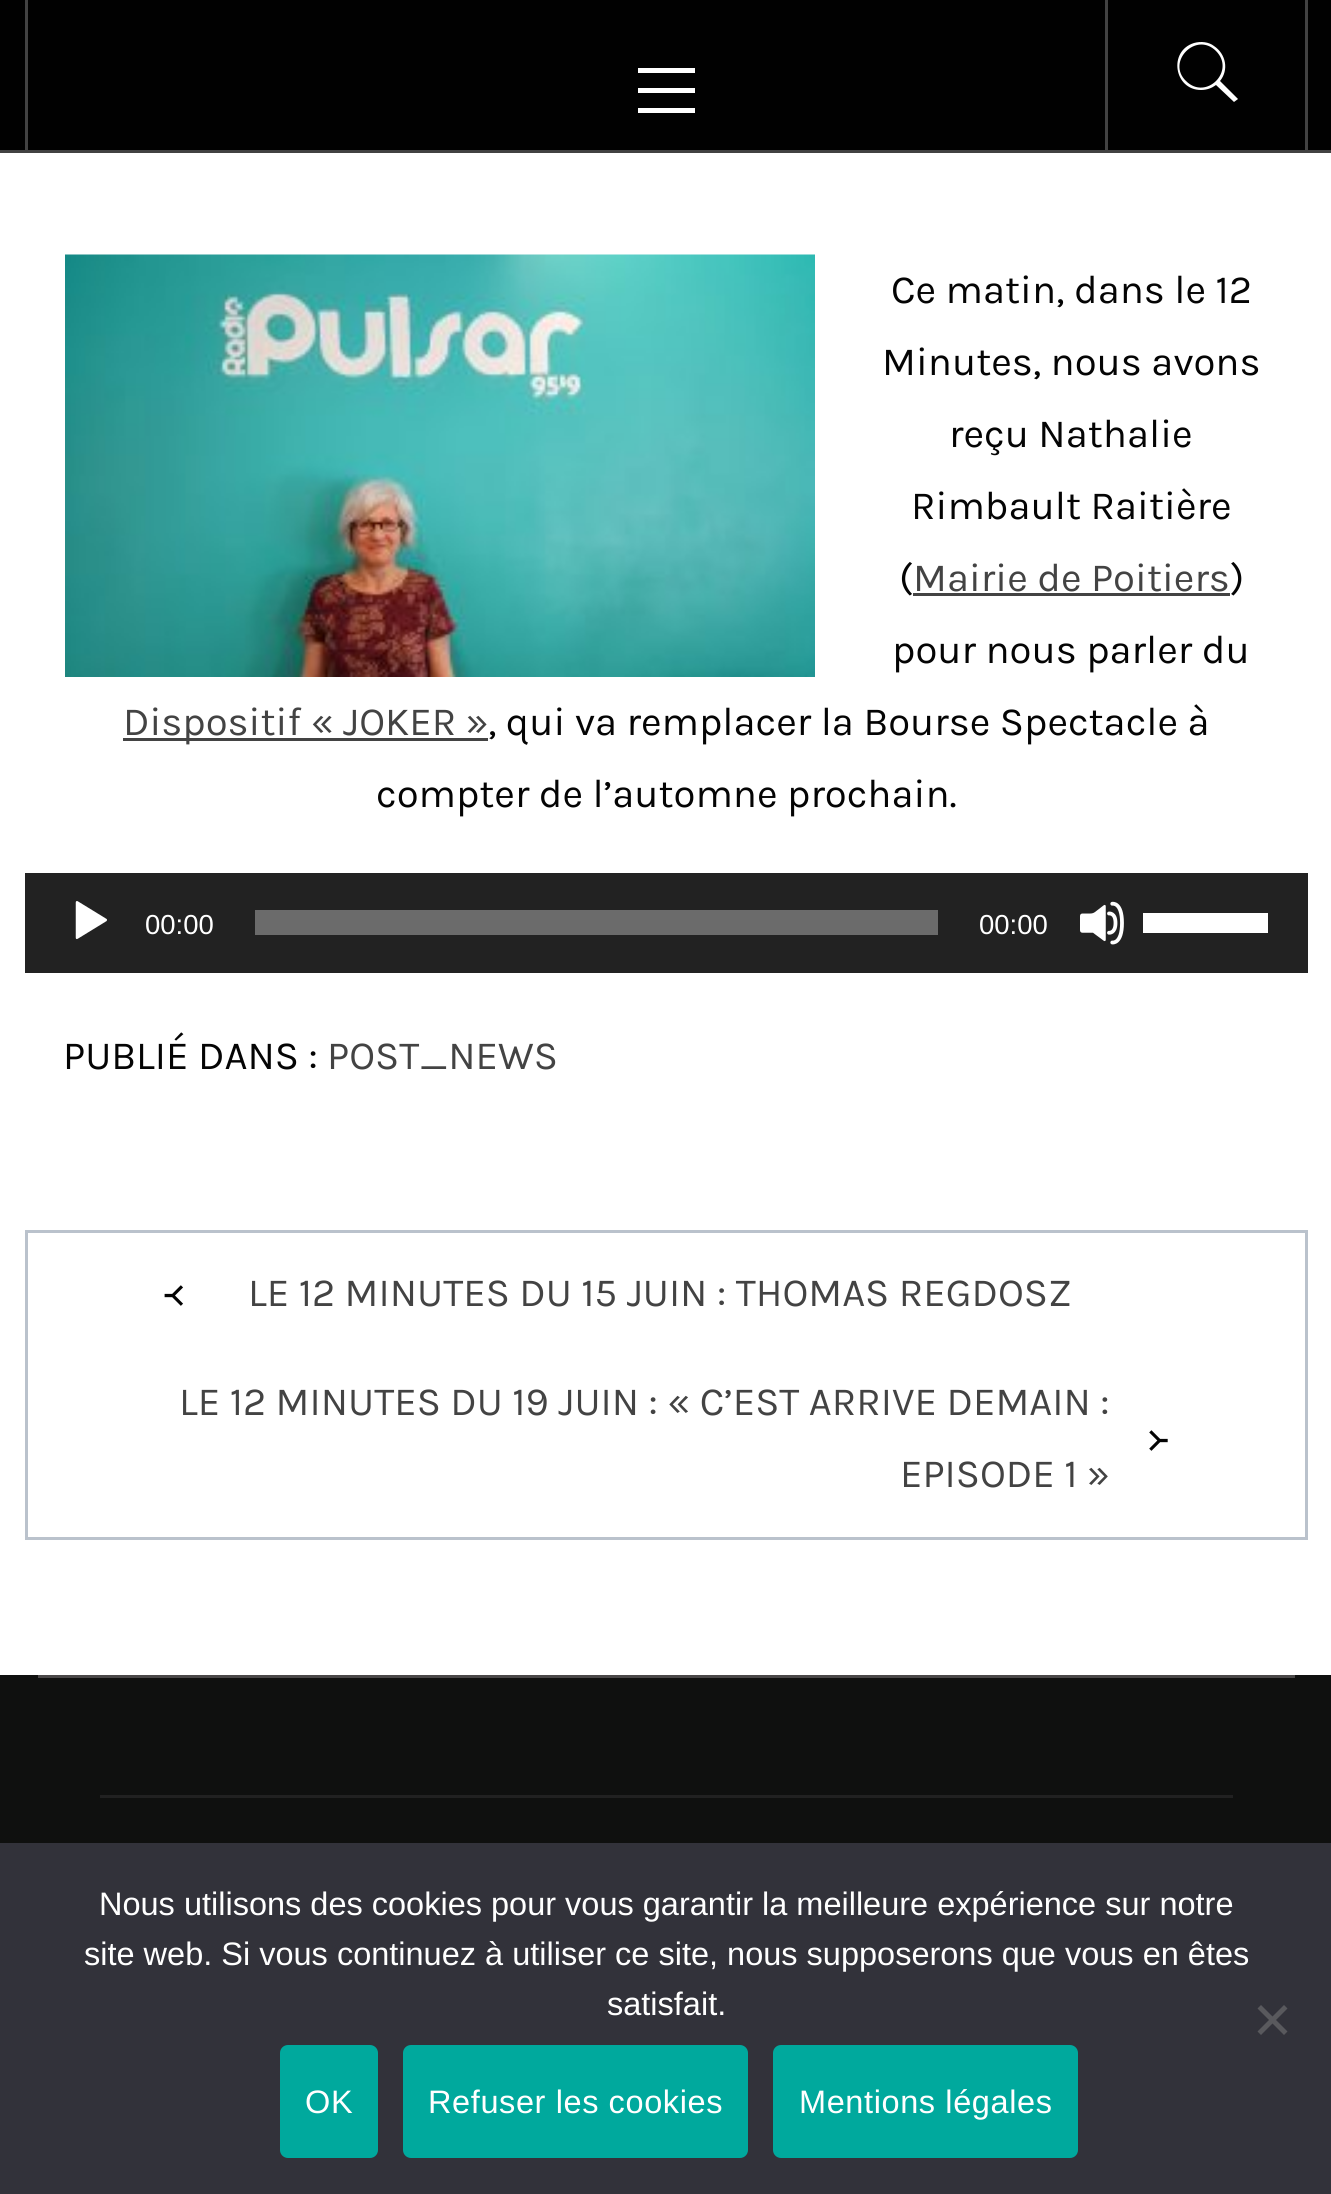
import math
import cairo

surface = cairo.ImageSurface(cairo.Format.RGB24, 1331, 2194)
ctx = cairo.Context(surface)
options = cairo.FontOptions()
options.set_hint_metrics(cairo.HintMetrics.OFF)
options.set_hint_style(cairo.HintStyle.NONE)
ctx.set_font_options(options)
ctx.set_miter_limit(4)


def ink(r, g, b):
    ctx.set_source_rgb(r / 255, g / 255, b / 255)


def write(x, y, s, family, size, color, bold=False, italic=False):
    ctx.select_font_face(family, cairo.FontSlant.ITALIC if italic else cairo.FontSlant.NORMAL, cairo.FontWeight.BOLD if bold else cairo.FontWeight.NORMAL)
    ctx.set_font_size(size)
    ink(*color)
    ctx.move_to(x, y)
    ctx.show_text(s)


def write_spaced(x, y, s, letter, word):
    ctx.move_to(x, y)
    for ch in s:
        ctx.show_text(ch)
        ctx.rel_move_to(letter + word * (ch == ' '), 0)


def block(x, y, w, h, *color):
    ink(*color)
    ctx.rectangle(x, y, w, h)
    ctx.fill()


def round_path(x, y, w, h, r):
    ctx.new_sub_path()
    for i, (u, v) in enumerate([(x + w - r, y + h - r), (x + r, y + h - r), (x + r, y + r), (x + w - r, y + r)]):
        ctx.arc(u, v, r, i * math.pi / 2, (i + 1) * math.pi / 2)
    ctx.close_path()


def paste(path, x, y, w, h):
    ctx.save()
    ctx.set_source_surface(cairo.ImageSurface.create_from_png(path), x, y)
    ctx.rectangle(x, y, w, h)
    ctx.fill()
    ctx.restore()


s1 = dict(family="Karla", size=40, color=(4, 4, 4))
s2 = dict(family="Karla", size=40, color=(67, 67, 67))
s3 = dict(family="Liberation Sans", size=27.5, color=(255, 255, 255))
s4 = dict(family="DejaVu Sans", size=40, color=(4, 4, 4))
s5 = dict(family="Liberation Sans", size=32.5, color=(255, 255, 255))

ink(255, 255, 255)
ctx.paint()
block(0, 0, 1331, 150, 1, 1, 1)
block(0, 150, 1331, 3, 66, 66, 66)
block(1305, 0, 3, 150, 66, 66, 66)
block(25, 0, 3, 150, 66, 66, 66)
block(638, 88, 57, 5, 255, 255, 255)
block(638, 68, 57, 5, 255, 255, 255)
block(638, 108, 57, 5, 255, 255, 255)
block(1105, 0, 3, 150, 66, 66, 66)
ink(255, 255, 255)
ctx.new_path()
ctx.move_to(1238, 99)
ctx.line_to(1234, 102)
ctx.line_to(1216, 85)
ctx.curve_to(1212, 88, 1207, 90, 1201, 90)
ctx.curve_to(1174, 90, 1168, 51, 1194, 43)
ctx.curve_to(1201, 41, 1209, 42, 1214, 46)
ctx.curve_to(1226, 54, 1229, 70, 1220, 81)
ctx.close_path()
ctx.move_to(1186, 81)
ctx.curve_to(1206, 101, 1236, 71, 1216, 51)
ctx.curve_to(1196, 31, 1166, 62, 1186, 81)
ctx.close_path()
ctx.fill()
paste("pic1.png", 65, 254, 750, 423)
write(891, 303, "Ce matin, dans le 12", **s1)
write(882, 375, "Minutes, nous avons", **s1)
write(949, 447, "reçu Nathalie", **s1)
write(911, 519, "Rimbault Raitière", **s1)
write(899, 591, "(", **s1)
write(913, 591, "Mairie de Poitiers", **s2)
block(913, 593, 317, 3, 67, 67, 67)
write(1230, 591, ")", **s1)
write(892, 663, "pour nous parler du", **s1)
block(123, 738, 365, 3, 67, 67, 67)
write(123, 735, "Dispositif « JOKER »", **s2)
write(488, 735, ", qui va remplacer la Bourse Spectacle à", **s1)
write(376, 807, "compter de l’automne prochain.", **s1)
block(25, 873, 1283, 100, 34, 34, 34)
paste("pic2.png", 75, 901, 32, 39)
write(145, 934, "00:00", **s3)
block(255, 910, 683, 25, 107, 107, 107)
write(979, 934, "00:00", **s3)
paste("pic3.png", 1080, 901, 44, 44)
block(1143, 913, 125, 20, 255, 255, 255)
write(63, 1069, "PUBLIÉ DANS :", **s1)
write(327, 1069, "POST_NEWS", **s2)
ctx.rectangle(26.5, 1231.5, 1280, 307)
ink(186, 194, 204)
ctx.set_line_width(3)
ctx.stroke()
write(165, 1307, "᚜", **s4)
write(248, 1306, "LE 12 MINUTES DU 15 JUIN : THOMAS REGDOSZ", **s2)
write(179, 1415, "LE 12 MINUTES DU 19 JUIN : « C’EST ARRIVE DEMAIN :", **s2)
write(900, 1487, "EPISODE 1 »", **s2)
write(1147, 1452, "᚛", **s4)
block(0, 1675, 1331, 168, 15, 16, 15)
block(38, 1675, 1257, 3, 74, 72, 72)
block(100, 1795, 1133, 3, 33, 33, 33)
block(0, 1843, 1331, 351, 50, 50, 58)
write(99, 1915, "Nous utilisons des cookies pour vous garantir la meilleure expérience sur notre", **s5)
write(84, 1965, "site web. Si vous continuez à utiliser ce site, nous supposerons que vous en êtes", **s5)
write(607, 2015, "satisfait.", **s5)
ink(89, 89, 93)
ctx.new_path()
ctx.move_to(1284, 2005)
ctx.line_to(1287.5, 2008.5)
ctx.line_to(1261, 2035)
ctx.line_to(1257.5, 2031.5)
ctx.close_path()
ctx.fill()
ctx.new_path()
ctx.move_to(1257.5, 2008.5)
ctx.line_to(1261, 2005)
ctx.line_to(1287.5, 2031.5)
ctx.line_to(1284, 2035)
ctx.close_path()
ctx.fill()
ink(0, 169, 157)
round_path(280, 2045, 98, 113, 8)
ctx.fill()
ink(255, 255, 255)
write_spaced(305, 2113, "OK", 0.6, 0)
ink(0, 169, 157)
round_path(403, 2045, 345, 113, 8)
ctx.fill()
ink(255, 255, 255)
write_spaced(428, 2113, "Refuser les cookies", 0.6, 0)
ink(0, 169, 157)
round_path(773, 2045, 305, 113, 8)
ctx.fill()
ink(255, 255, 255)
write_spaced(799, 2113, "Mentions légales", 0.6, 0)
surface.write_to_png("screenshot.png")
